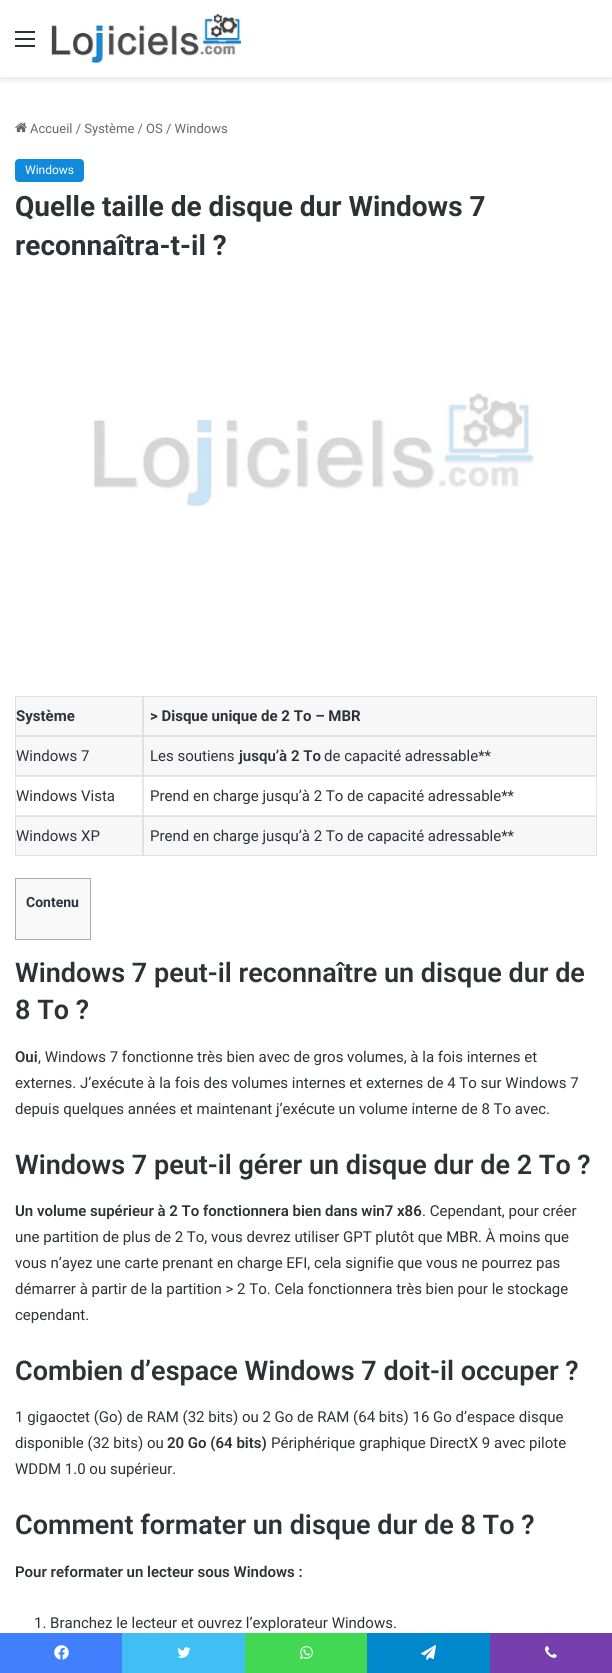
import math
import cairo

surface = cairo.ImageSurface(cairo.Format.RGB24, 612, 1673)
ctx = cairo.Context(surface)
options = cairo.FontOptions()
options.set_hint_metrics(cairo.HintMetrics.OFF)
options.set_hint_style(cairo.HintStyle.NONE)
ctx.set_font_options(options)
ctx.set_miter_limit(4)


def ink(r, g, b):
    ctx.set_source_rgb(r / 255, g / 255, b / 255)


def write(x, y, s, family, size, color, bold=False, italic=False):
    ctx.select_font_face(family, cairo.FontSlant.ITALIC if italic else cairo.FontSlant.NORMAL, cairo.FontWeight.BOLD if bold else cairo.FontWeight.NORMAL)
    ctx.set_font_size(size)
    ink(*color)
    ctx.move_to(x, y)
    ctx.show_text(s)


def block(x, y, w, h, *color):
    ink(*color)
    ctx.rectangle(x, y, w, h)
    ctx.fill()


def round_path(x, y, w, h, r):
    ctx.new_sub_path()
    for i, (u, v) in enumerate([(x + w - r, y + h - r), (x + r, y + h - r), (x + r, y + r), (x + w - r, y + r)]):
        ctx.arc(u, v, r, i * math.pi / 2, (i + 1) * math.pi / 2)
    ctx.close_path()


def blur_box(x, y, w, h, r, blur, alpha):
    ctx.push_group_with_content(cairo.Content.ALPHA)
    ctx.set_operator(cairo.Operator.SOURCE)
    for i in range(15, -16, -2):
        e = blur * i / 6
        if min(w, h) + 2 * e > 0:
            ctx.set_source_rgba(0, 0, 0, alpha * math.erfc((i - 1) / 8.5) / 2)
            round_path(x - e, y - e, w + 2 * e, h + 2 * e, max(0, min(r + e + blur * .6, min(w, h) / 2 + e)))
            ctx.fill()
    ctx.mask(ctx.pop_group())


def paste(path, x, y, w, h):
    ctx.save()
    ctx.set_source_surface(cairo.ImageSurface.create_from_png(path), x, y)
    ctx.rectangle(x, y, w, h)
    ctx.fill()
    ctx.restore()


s1 = dict(family="Roboto", size=13, color=(104, 104, 104))
s2 = dict(family="Roboto", size=12, color=(255, 255, 255))
s3 = dict(family="Roboto", size=28, color=(46, 49, 54), bold=True)
s4 = dict(family="Roboto", size=15, color=(46, 49, 54), bold=True)
s5 = dict(family="Roboto", size=15, color=(46, 49, 54))
s6 = dict(family="Roboto SemiBold", size=15, color=(46, 49, 54))
s7 = dict(family="Roboto", size=14, color=(46, 49, 54), bold=True)
s8 = dict(family="Roboto SemiBold", size=27, color=(46, 49, 54))

ink(255, 255, 255)
ctx.paint()
ctx.save()
ctx.rectangle(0, 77, 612, 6)
ctx.clip()
ink(0, 0, 0)
blur_box(0, 3, 612, 77, 0, 3.5, 0.1)
ctx.restore()
block(15, 38, 20, 2, 44, 47, 52)
block(15, 31, 20, 2, 44, 47, 52)
block(15, 45, 20, 2, 44, 47, 52)
paste("pic1.png", 51, 14, 190, 49)
paste("pic2.png", 15, 122, 12, 11)
write(30, 133, "Accueil / Système / OS / Windows", **s1)
ink(17, 138, 219)
round_path(15, 159, 69, 23, 4)
ctx.fill()
write(25, 174, "Windows", **s2)
write(15, 216, "Quelle taille de disque dur Windows 7", **s3)
write(15, 255, "reconnaîtra-t-il ?", **s3)
paste("pic3.png", 93, 393, 441, 114)
ink(247, 247, 247)
ctx.rectangle(15.5, 696.5, 127, 39)
ctx.fill_preserve()
ink(223, 223, 223)
ctx.set_line_width(1)
ctx.stroke()
write(16, 721, "Système", **s4)
ink(247, 247, 247)
ctx.rectangle(143.5, 696.5, 453, 39)
ctx.fill_preserve()
ink(223, 223, 223)
ctx.stroke()
write(150, 721, "> Disque unique de 2 To – MBR", **s4)
block(16, 737, 580, 38, 247, 247, 247)
ctx.rectangle(15.5, 736.5, 127, 39)
ink(223, 223, 223)
ctx.stroke()
write(16, 761, "Windows 7", **s5)
ctx.rectangle(143.5, 736.5, 453, 39)
ink(223, 223, 223)
ctx.stroke()
write(150, 761, "Les soutiens", **s5)
write(239, 761, "jusqu’à 2 To", **s6)
write(324, 761, "de capacité adressable**", **s5)
ctx.rectangle(15.5, 776.5, 127, 39)
ink(230, 230, 230)
ctx.stroke()
write(16, 801, "Windows Vista", **s5)
ctx.rectangle(143.5, 776.5, 453, 39)
ink(230, 230, 230)
ctx.stroke()
write(150, 801, "Prend en charge jusqu’à 2 To de capacité adressable**", **s5)
block(16, 817, 580, 38, 247, 247, 247)
ctx.rectangle(15.5, 816.5, 127, 39)
ink(223, 223, 223)
ctx.stroke()
write(16, 841, "Windows XP", **s5)
ctx.rectangle(143.5, 816.5, 453, 39)
ink(223, 223, 223)
ctx.stroke()
write(150, 841, "Prend en charge jusqu’à 2 To de capacité adressable**", **s5)
ink(249, 249, 249)
ctx.rectangle(15.5, 878.5, 75, 61)
ctx.fill_preserve()
ink(171, 171, 171)
ctx.stroke()
write(26, 907, "Contenu", **s7)
write(15, 982, "Windows 7 peut-il reconnaître un disque dur de", **s8)
write(15, 1019, "8 To ?", **s8)
write(15, 1062, "Oui", **s6)
write(38, 1062, ", Windows 7 fonctionne très bien avec de gros volumes, à la fois internes et", **s5)
write(15, 1088, "externes. J’exécute à la fois des volumes internes et externes de 4 To sur Windows 7", **s5)
write(15, 1114, "depuis quelques années et maintenant j’exécute un volume interne de 8 To avec.", **s5)
write(15, 1174, "Windows 7 peut-il gérer un disque dur de 2 To ?", **s8)
write(15, 1216, "Un volume supérieur à 2 To fonctionnera bien dans win7 x86", **s6)
write(422, 1216, ". Cependant, pour créer", **s5)
write(15, 1242, "une partition de plus de 2 To, vous devrez utiliser GPT plutôt que MBR. À moins que", **s5)
write(15, 1268, "vous n’ayez une carte prenant en charge EFI, cela signifie que vous ne pourrez pas", **s5)
write(15, 1294, "démarrer à partir de la partition > 2 To. Cela fonctionnera très bien pour le stockage", **s5)
write(15, 1320, "cependant.", **s5)
write(15, 1380, "Combien d’espace Windows 7 doit-il occuper ?", **s8)
write(15, 1422, "1 gigaoctet (Go) de RAM (32 bits) ou 2 Go de RAM (64 bits) 16 Go d’espace disque", **s5)
write(15, 1448, "disponible (32 bits) ou", **s5)
write(167, 1448, "20 Go (64 bits)", **s6)
write(271, 1448, "Périphérique graphique DirectX 9 avec pilote", **s5)
write(15, 1474, "WDDM 1.0 ou supérieur.", **s5)
write(15, 1534, "Comment formater un disque dur de 8 To ?", **s8)
write(15, 1577, "Pour reformater un lecteur sous Windows :", **s6)
write(34, 1628, "1. Branchez le lecteur et ouvrez l’explorateur Windows.", **s5)
block(0, 1633, 122, 40, 64, 128, 255)
paste("pic4.png", 54, 1645, 15, 15)
block(122, 1633, 123, 40, 64, 191, 245)
paste("pic5.png", 177, 1647, 14, 11)
block(245, 1633, 122, 40, 67, 216, 84)
paste("pic6.png", 300, 1646, 13, 13)
block(367, 1633, 123, 40, 0, 136, 204)
paste("pic7.png", 421, 1645, 15, 15)
block(490, 1633, 122, 40, 119, 62, 173)
paste("pic8.png", 545, 1646, 12, 12)
surface.write_to_png("screenshot.png")
